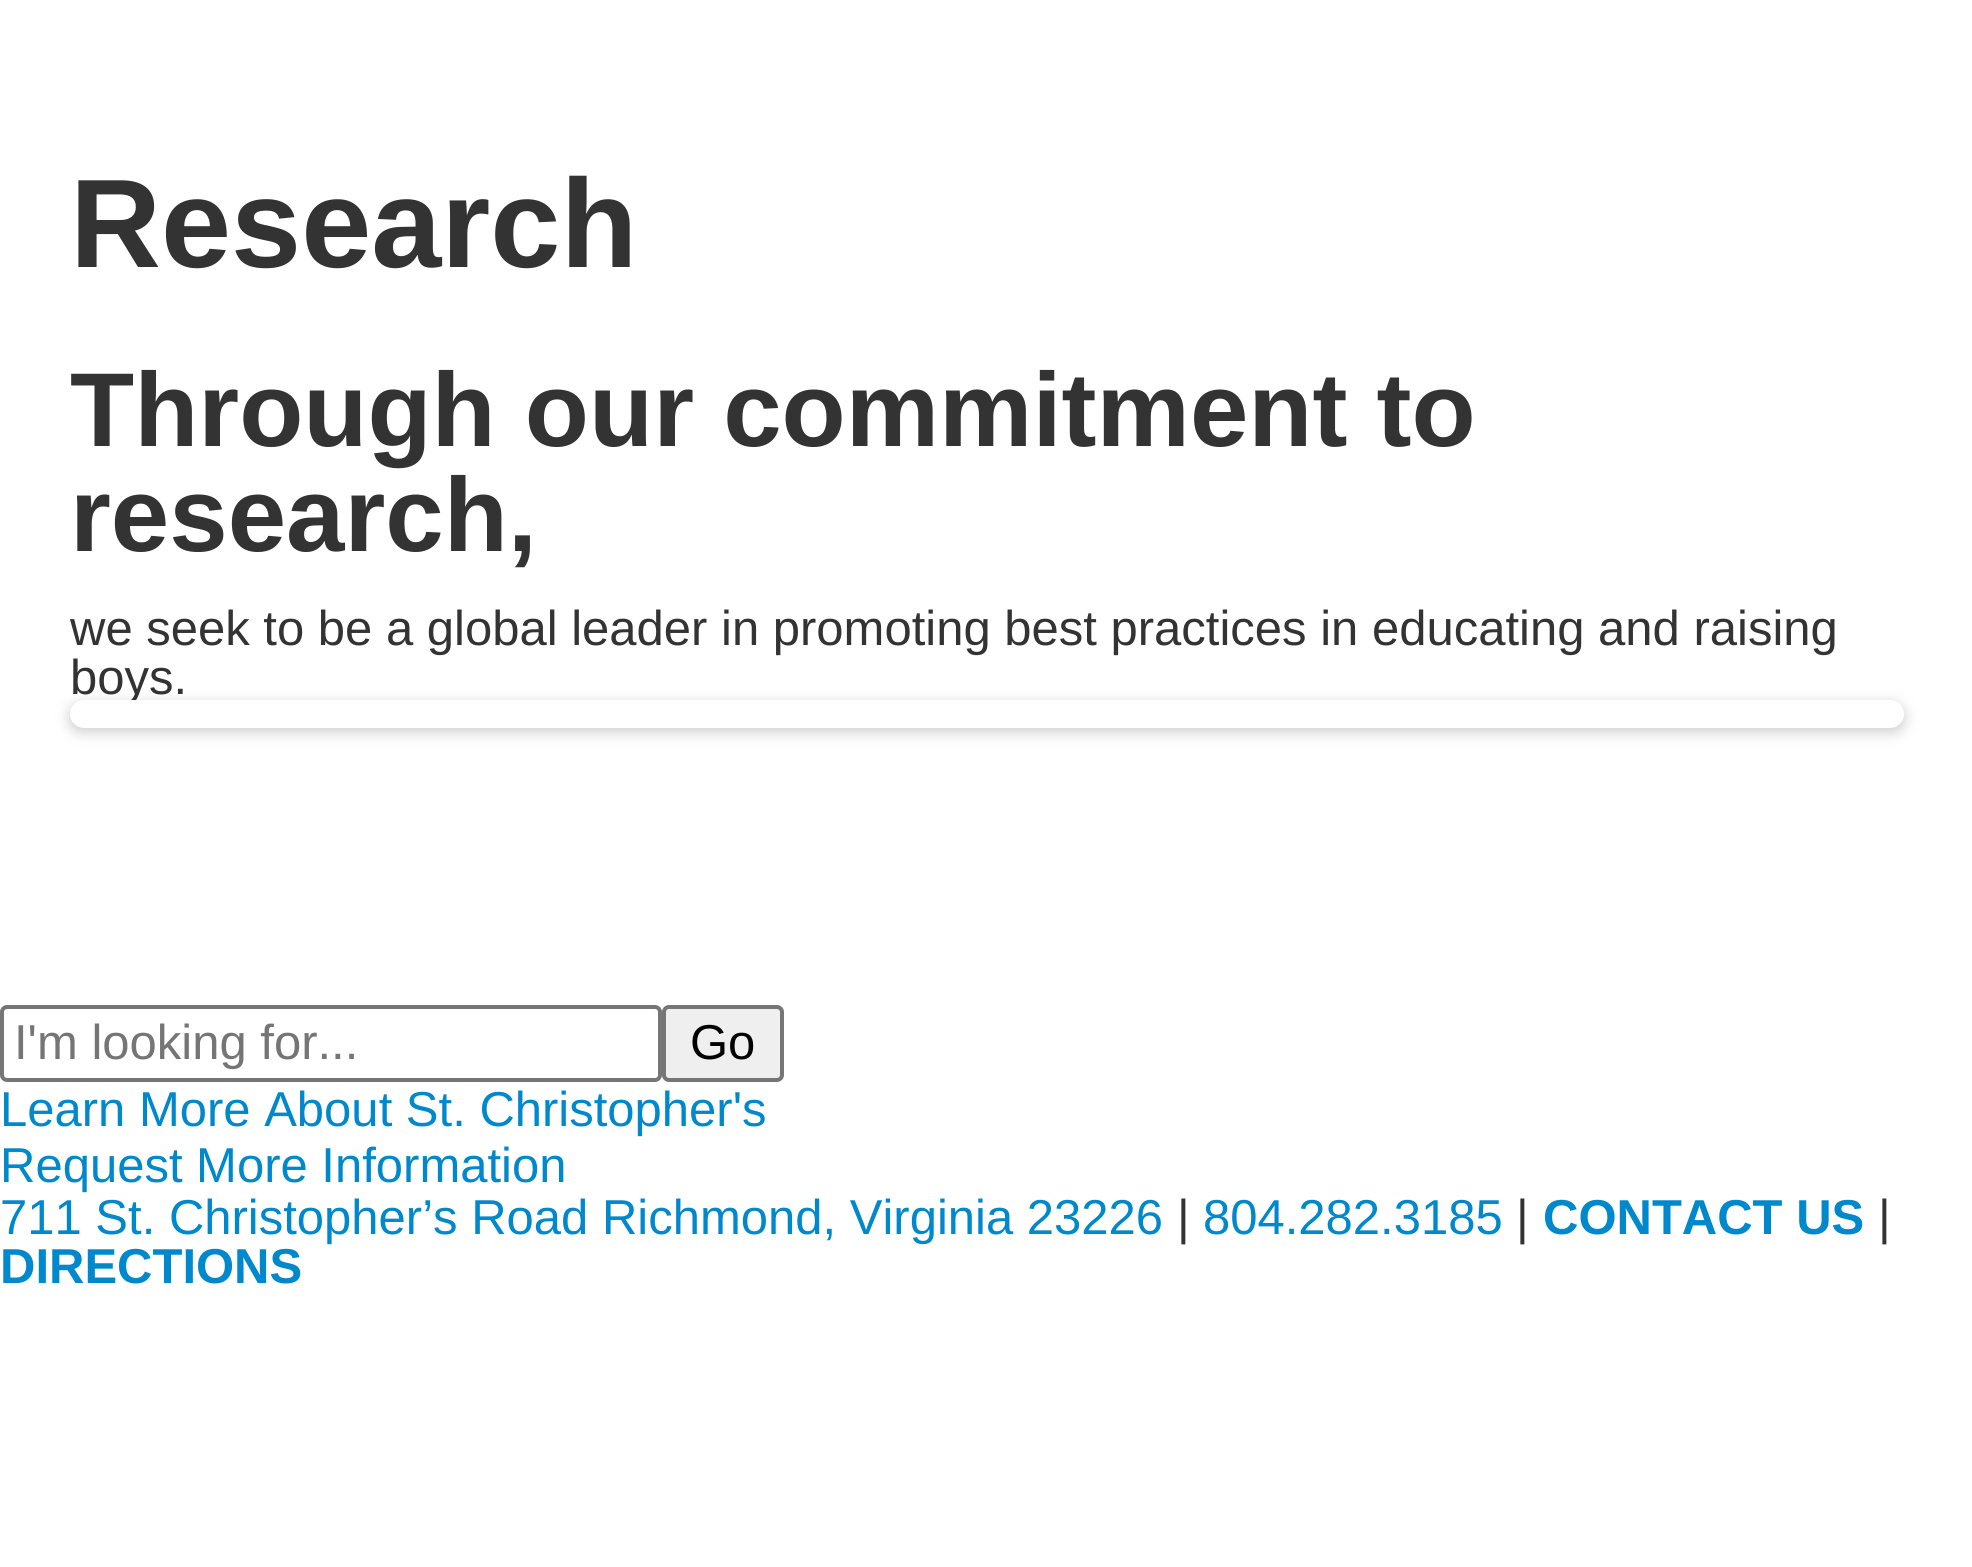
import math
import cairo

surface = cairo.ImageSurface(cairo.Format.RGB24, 1972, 1567)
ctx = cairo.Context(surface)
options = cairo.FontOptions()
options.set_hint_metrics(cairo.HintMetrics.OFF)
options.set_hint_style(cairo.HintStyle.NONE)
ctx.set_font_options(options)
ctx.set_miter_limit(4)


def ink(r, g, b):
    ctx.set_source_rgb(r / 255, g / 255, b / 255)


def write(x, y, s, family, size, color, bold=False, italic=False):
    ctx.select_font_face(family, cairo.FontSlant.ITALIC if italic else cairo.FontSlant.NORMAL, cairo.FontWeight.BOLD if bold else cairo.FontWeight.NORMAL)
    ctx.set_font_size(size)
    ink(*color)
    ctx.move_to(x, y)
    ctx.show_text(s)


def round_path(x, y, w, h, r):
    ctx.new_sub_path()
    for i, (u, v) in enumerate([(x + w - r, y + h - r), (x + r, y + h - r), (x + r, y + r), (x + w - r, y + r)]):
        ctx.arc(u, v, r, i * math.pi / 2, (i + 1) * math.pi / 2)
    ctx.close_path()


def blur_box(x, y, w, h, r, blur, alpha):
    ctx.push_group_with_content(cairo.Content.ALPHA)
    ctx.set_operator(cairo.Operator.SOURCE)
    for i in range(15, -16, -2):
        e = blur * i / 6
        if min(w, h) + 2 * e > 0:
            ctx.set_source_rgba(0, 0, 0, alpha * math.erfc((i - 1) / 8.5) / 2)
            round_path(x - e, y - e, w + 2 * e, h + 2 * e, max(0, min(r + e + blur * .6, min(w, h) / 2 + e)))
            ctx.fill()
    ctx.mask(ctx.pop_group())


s1 = dict(family="Liberation Sans", size=126, color=(51, 51, 51), bold=True)
s2 = dict(family="Liberation Sans", size=105, color=(51, 51, 51), bold=True)
s3 = dict(family="Liberation Sans", size=49, color=(51, 51, 51))
s4 = dict(family="Liberation Sans", size=49, color=(117, 117, 117))
s5 = dict(family="Liberation Sans", size=49, color=(0, 0, 0))
s6 = dict(family="Liberation Sans", size=49, color=(0, 136, 204))
s7 = dict(family="Liberation Sans", size=49, color=(0, 136, 204), bold=True)

ink(255, 255, 255)
ctx.paint()
write(70, 267, "Research", **s1)
write(70, 446, "Through our commitment to", **s2)
write(70, 551, "research,", **s2)
write(70, 645, "we seek to be a global leader in promoting best practices in educating and raising", **s3)
write(70, 694, "boys.", **s3)
ink(0, 0, 0)
blur_box(70, 704, 1834, 28, 14, 7, 0.2)
ink(255, 255, 255)
round_path(70, 700, 1834, 28, 14)
ctx.fill()
round_path(2, 1007, 658, 73, 5)
ink(118, 118, 118)
ctx.set_line_width(4)
ctx.stroke()
write(14, 1059, "I'm looking for...", **s4)
ink(239, 239, 239)
round_path(664, 1007, 118, 73, 5)
ctx.fill_preserve()
ink(118, 118, 118)
ctx.stroke()
write(690, 1059, "Go", **s5)
write(0, 1126, "Learn More About St. Christopher's", **s6)
write(0, 1182, "Request More Information", **s6)
write(0, 1234, "711 St. Christopher’s Road Richmond, Virginia 23226", **s6)
write(1177, 1234, "|", **s3)
write(1203, 1234, "804.282.3185", **s6)
write(1516, 1234, "|", **s3)
write(1543, 1234, "CONTACT US", **s7)
write(1878, 1234, "|", **s3)
write(0, 1283, "DIRECTIONS", **s7)
surface.write_to_png("screenshot.png")
